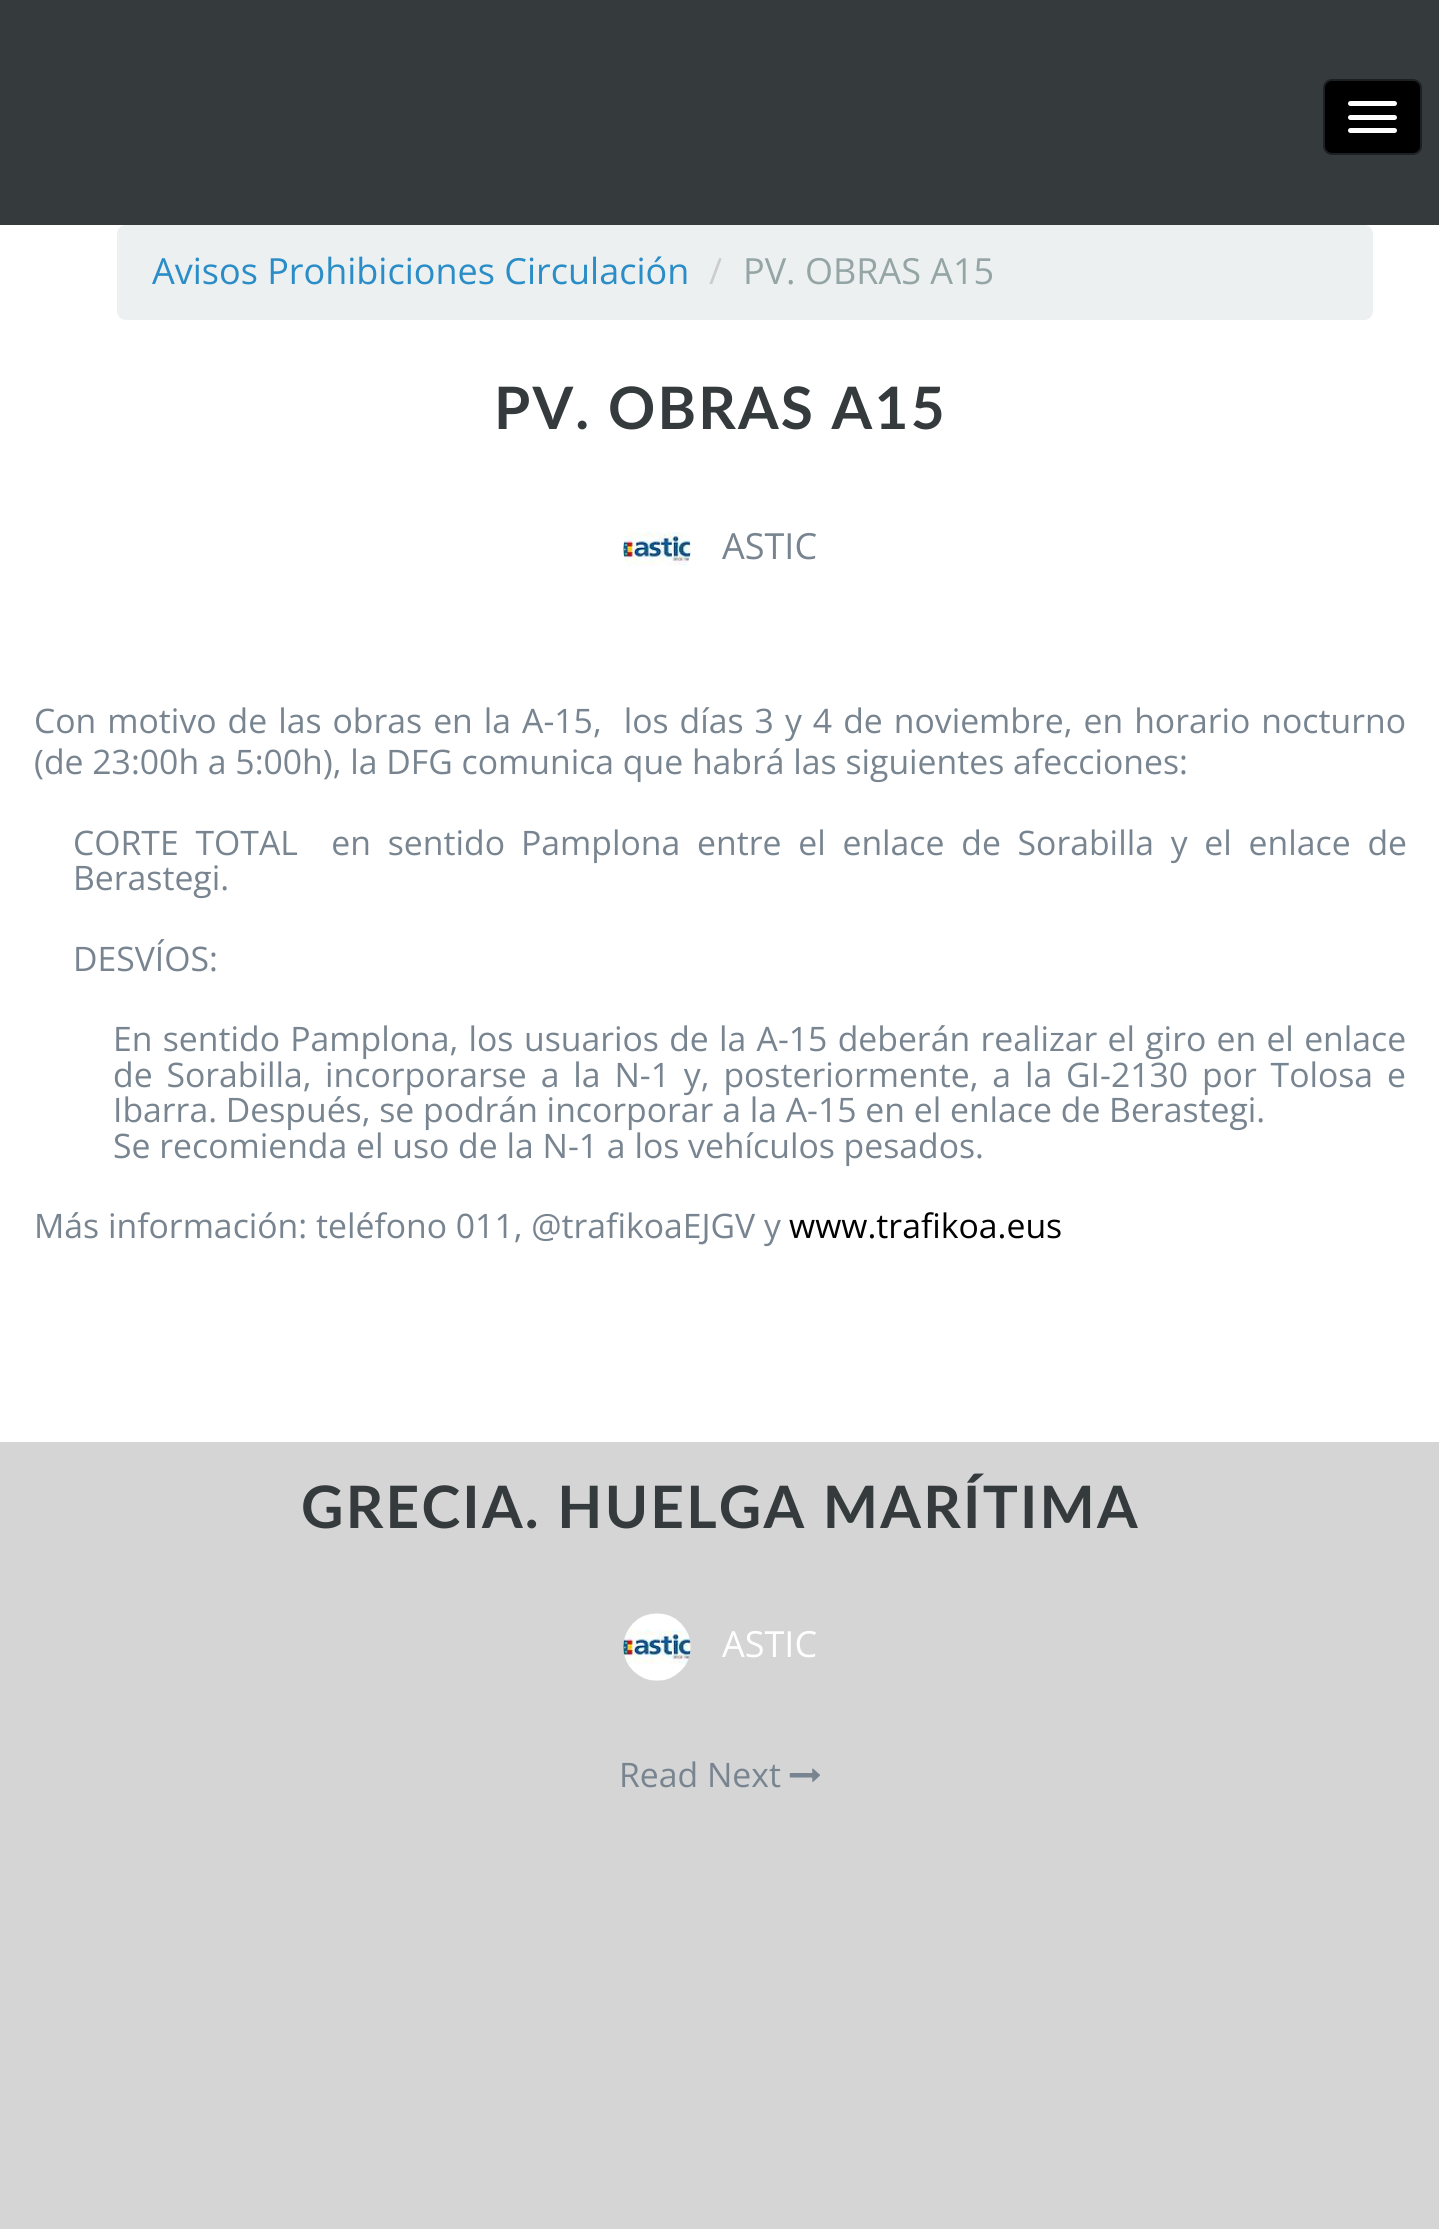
import math
import cairo

surface = cairo.ImageSurface(cairo.Format.RGB24, 1439, 2229)
ctx = cairo.Context(surface)
options = cairo.FontOptions()
options.set_hint_metrics(cairo.HintMetrics.OFF)
options.set_hint_style(cairo.HintStyle.NONE)
ctx.set_font_options(options)
ctx.set_miter_limit(4)


def ink(r, g, b):
    ctx.set_source_rgb(r / 255, g / 255, b / 255)


def write(x, y, s, family, size, color, bold=False, italic=False):
    ctx.select_font_face(family, cairo.FontSlant.ITALIC if italic else cairo.FontSlant.NORMAL, cairo.FontWeight.BOLD if bold else cairo.FontWeight.NORMAL)
    ctx.set_font_size(size)
    ink(*color)
    ctx.move_to(x, y)
    ctx.show_text(s)


def write_spaced(x, y, s, letter, word):
    ctx.move_to(x, y)
    for ch in s:
        ctx.show_text(ch)
        ctx.rel_move_to(letter + word * (ch == ' '), 0)


def block(x, y, w, h, *color):
    ink(*color)
    ctx.rectangle(x, y, w, h)
    ctx.fill()


def round_path(x, y, w, h, r):
    ctx.new_sub_path()
    for i, (u, v) in enumerate([(x + w - r, y + h - r), (x + r, y + h - r), (x + r, y + r), (x + w - r, y + r)]):
        ctx.arc(u, v, r, i * math.pi / 2, (i + 1) * math.pi / 2)
    ctx.close_path()


def paste(path, x, y, w, h):
    ctx.save()
    ctx.set_source_surface(cairo.ImageSurface.create_from_png(path), x, y)
    ctx.rectangle(x, y, w, h)
    ctx.fill()
    ctx.restore()


s1 = dict(family="Open Sans", size=36, color=(42, 141, 199))
s2 = dict(family="Open Sans", size=36, color=(204, 204, 204))
s3 = dict(family="Open Sans", size=36, color=(149, 165, 166))
s4 = dict(family="Open Sans", size=36, color=(120, 133, 144))
s5 = dict(family="Open Sans", size=33.75, color=(120, 133, 144))
s6 = dict(family="Open Sans", size=33.75, color=(0, 0, 0))
s7 = dict(family="Open Sans", size=36, color=(255, 255, 255))

ink(255, 255, 255)
ctx.paint()
block(0, 0, 1439, 225, 53, 58, 61)
ink(0, 0, 0)
round_path(1324, 80, 97, 74, 8)
ctx.fill_preserve()
ink(29, 32, 34)
ctx.stroke()
ink(255, 255, 255)
round_path(1348, 101, 49, 5, 2.5)
ctx.fill()
round_path(1348, 115, 49, 5, 2.5)
ctx.fill()
round_path(1348, 128, 49, 5, 2.5)
ctx.fill()
ink(236, 240, 241)
round_path(117, 225, 1256, 95, 9)
ctx.fill()
write(152, 284, "Avisos Prohibiciones Circulación", **s1)
write(709, 284, "/", **s2)
write(743, 284, "PV. OBRAS A15", **s3)
ctx.select_font_face("Lato", cairo.FontSlant.NORMAL, cairo.FontWeight.BOLD)
ctx.set_font_size(58.5)
ink(53, 58, 61)
write_spaced(494, 429, "PV. OBRAS A15", 2.25, 0)
paste("pic1.png", 623, 531, 68, 35)
write(722, 559, "ASTIC", **s4)
ctx.set_font_size(33.75)
write_spaced(34, 733, "Con motivo de las obras en la A-15,  los días 3 y 4 de noviembre, en horario nocturno", 0, 2.25)
write(34, 774, "(de 23:00h a 5:00h), la DFG comunica que habrá las siguientes afecciones:", **s5)
write_spaced(73, 855, "CORTE TOTAL  en sentido", 0, 8)
write_spaced(521, 855, "Pamplona entre el enlace de Sorabilla y el enlace de", 0, 8)
write(73, 890, "Berastegi.", **s5)
write(73, 971, "DESVÍOS:", **s5)
write_spaced(113, 1051, "En sentido Pamplona, los", 0, 1.5)
write_spaced(524, 1051, "usuarios de la A-15 deberán realizar el giro en el enlace", 0, 1.5)
write_spaced(113, 1087, "de Sorabilla,", 0, 5.1)
write_spaced(325, 1087, "incorporarse a la N-1 y, posteriormente, a la GI-2130 por Tolosa e", 0, 5.1)
write(113, 1122, "Ibarra. Después, se podrán incorporar a la A-15 en el enlace de Berastegi.", **s5)
write(113, 1158, "Se recomienda el uso de la N-1 a los vehículos pesados.", **s5)
write(34, 1238, "Más información: teléfono 011, @trafikoaEJGV y", **s5)
write(789, 1238, "www.trafikoa.eus", **s6)
block(0, 1442, 1439, 787, 213, 213, 213)
ctx.select_font_face("Lato", cairo.FontSlant.NORMAL, cairo.FontWeight.BOLD)
ctx.set_font_size(58.5)
ink(53, 58, 61)
write_spaced(301, 1528, "GRECIA. HUELGA MARÍTIMA", 2.25, 0)
paste("pic2.png", 623, 1613, 68, 68)
write(722, 1657, "ASTIC", **s7)
write(619, 1787, "Read Next", **s5)
paste("pic3.png", 789, 1768, 31, 14)
surface.write_to_png("screenshot.png")
